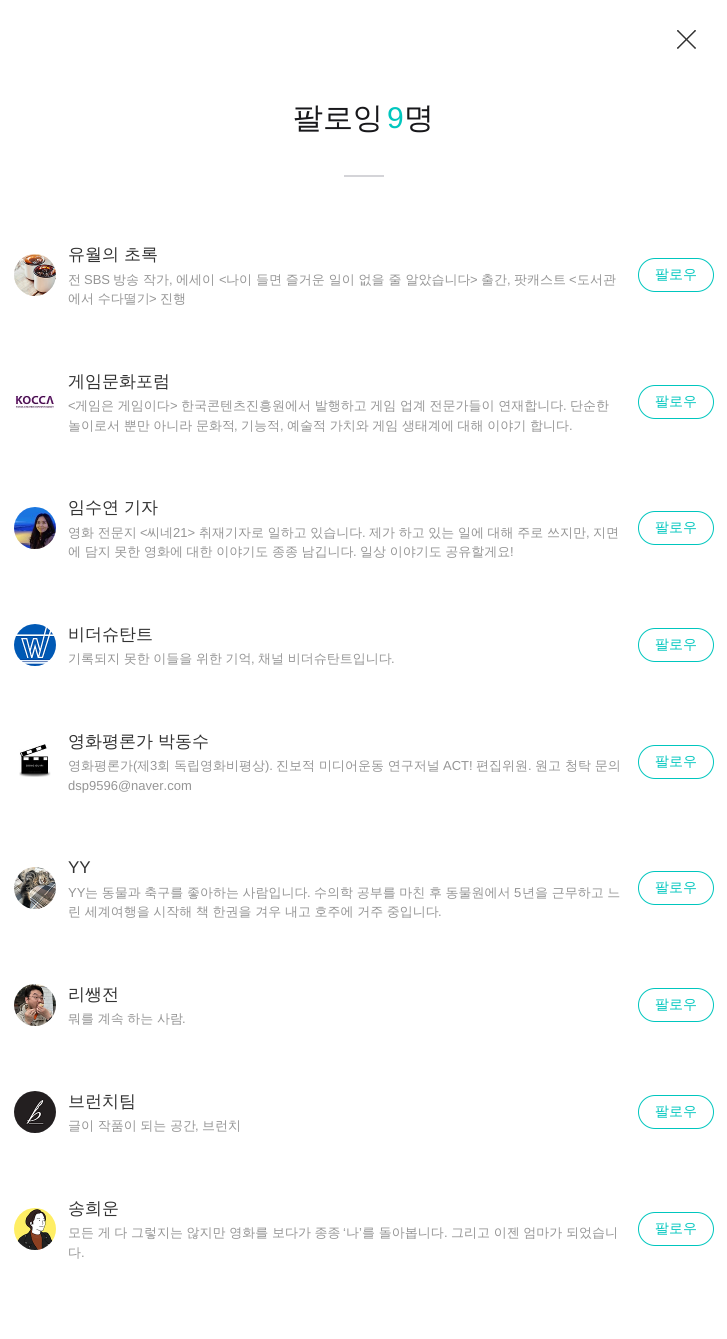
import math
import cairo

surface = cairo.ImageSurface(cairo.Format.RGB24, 727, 1339)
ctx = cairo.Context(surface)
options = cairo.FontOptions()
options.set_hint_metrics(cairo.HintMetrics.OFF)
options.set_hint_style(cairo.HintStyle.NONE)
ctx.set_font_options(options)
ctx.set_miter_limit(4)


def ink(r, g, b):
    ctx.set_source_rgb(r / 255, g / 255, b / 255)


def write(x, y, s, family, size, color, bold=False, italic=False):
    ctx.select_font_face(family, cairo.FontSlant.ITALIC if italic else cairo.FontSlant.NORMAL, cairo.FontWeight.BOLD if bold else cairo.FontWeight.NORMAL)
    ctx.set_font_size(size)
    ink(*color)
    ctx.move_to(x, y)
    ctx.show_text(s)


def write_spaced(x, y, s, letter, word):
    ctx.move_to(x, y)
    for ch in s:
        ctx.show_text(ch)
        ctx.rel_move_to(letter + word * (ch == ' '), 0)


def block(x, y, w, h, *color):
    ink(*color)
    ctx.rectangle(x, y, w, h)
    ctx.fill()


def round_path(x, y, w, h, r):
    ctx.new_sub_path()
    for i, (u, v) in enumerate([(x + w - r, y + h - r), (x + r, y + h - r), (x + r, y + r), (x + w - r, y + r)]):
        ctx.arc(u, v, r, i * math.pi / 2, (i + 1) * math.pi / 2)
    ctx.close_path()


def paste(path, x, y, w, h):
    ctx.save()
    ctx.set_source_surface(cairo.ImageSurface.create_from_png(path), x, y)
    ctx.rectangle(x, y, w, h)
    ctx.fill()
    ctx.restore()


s1 = dict(family="WenQuanYi Zen Hei Medium", size=30, color=(24, 24, 27))
s2 = dict(family="Liberation Sans", size=30, color=(0, 198, 190))
s3 = dict(family="WenQuanYi Zen Hei Medium", size=17, color=(51, 51, 51))
s4 = dict(family="WenQuanYi Zen Hei Medium", size=13, color=(149, 149, 149))
s5 = dict(family="Liberation Sans", size=13, color=(149, 149, 149))
s6 = dict(family="WenQuanYi Zen Hei Medium", size=14, color=(0, 198, 190))
s7 = dict(family="Liberation Sans", size=17, color=(51, 51, 51))

ink(255, 255, 255)
ctx.paint()
paste("pic1.png", 677, 30, 19, 19)
write(293, 128, "팔로잉", **s1)
write(387, 128, "9", **s2)
write(404, 128, "명", **s1)
block(344, 175, 40, 2, 212, 212, 216)
paste("pic2.png", 14, 254, 42, 42)
write(68, 260, "유월의 초록", **s3)
write(68, 284, "전", **s4)
write(84, 284, "SBS", **s5)
write(113, 284, "방송 작가", **s4)
write(176, 284, "에세이", **s4)
write(219, 284, "<", **s5)
write(226, 284, "나이 들면 즐거운 일이 없을 줄 알았습니다", **s4)
write(470, 284, ">", **s5)
write(481, 284, "출간", **s4)
write(514, 284, "팟캐스트", **s4)
write(569, 284, "<", **s5)
write(577, 284, "도서관", **s4)
write(169, 284, ",", **s5)
write(507, 284, ",", **s5)
ctx.select_font_face("WenQuanYi Zen Hei Medium")
write_spaced(68, 303, "에서 수다떨기", 0, -0.25)
write(149, 303, ">", **s5)
write(160, 303, "진행", **s4)
round_path(638.5, 258.5, 75, 33, 16.5)
ink(0, 198, 190)
ctx.set_line_width(1)
ctx.stroke()
write(655, 279, "팔로우", **s6)
paste("pic3.png", 15, 393, 39, 16)
write(68, 387, "게임문화포럼", **s3)
write(68, 410, "<", **s5)
ctx.select_font_face("WenQuanYi Zen Hei Medium")
write_spaced(75, 410, "게임은 게임이다", 0, -0.25)
write(170, 410, ">", **s5)
ctx.select_font_face("WenQuanYi Zen Hei Medium")
write_spaced(181, 410, "한국콘텐츠진흥원에서 발행하고 게임 업계 전문가들이 연재합니다", 0, -0.25)
write(563, 410, ".", **s5)
write(570, 410, "단순한", **s4)
write_spaced(68, 430, "놀이로서 뿐만 아니라 문화적", 0, -0.25)
write(234, 430, ",", **s5)
write(241, 430, "기능적", **s4)
write(280, 430, ",", **s5)
ctx.select_font_face("WenQuanYi Zen Hei Medium")
write_spaced(287, 430, "예술적 가치와 게임 생태계에 대해 이야기 합니다", 0, -0.25)
write(569, 430, ".", **s5)
round_path(638.5, 385.5, 75, 33, 16.5)
ink(0, 198, 190)
ctx.stroke()
write(655, 406, "팔로우", **s6)
paste("pic4.png", 14, 507, 42, 42)
write(68, 513, "임수연 기자", **s3)
ctx.set_font_size(13)
ink(149, 149, 149)
write_spaced(68, 537, "영화 전문지", 0, -0.25)
write(140, 537, "<", **s5)
write(147, 537, "씨네", **s4)
write(173, 537, "21>", **s5)
ctx.select_font_face("WenQuanYi Zen Hei Medium")
write_spaced(199, 537, "취재기자로 일하고 있습니다", 0, -0.25)
write(362, 537, ".", **s5)
ctx.select_font_face("WenQuanYi Zen Hei Medium")
write_spaced(369, 537, "제가 하고 있는 일에 대해 주로 쓰지만", 0, -0.25)
write(586, 537, ",", **s5)
write(593, 537, "지면", **s4)
write_spaced(68, 556, "에 담지 못한 영화에 대한 이야기도 종종 남깁니다", 0, -0.25)
write(353, 556, ".", **s5)
ctx.select_font_face("WenQuanYi Zen Hei Medium")
write_spaced(360, 556, "일상 이야기도 공유할게요", 0, -0.25)
write(510, 556, "!", **s5)
round_path(638.5, 511.5, 75, 33, 16.5)
ink(0, 198, 190)
ctx.stroke()
write(655, 532, "팔로우", **s6)
paste("pic5.png", 14, 624, 42, 42)
write(68, 640, "비더슈탄트", **s3)
ctx.set_font_size(13)
ink(149, 149, 149)
write_spaced(68, 663, "기록되지 못한 이들을 위한 기억", 0, -0.25)
write(251, 663, ",", **s5)
ctx.select_font_face("WenQuanYi Zen Hei Medium")
write_spaced(258, 663, "채널 비더슈탄트입니다", 0, -0.25)
write(391, 663, ".", **s5)
round_path(638.5, 628.5, 75, 33, 16.5)
ink(0, 198, 190)
ctx.stroke()
write(655, 649, "팔로우", **s6)
paste("pic6.png", 19, 744, 32, 33)
write(68, 747, "영화평론가 박동수", **s3)
write(68, 770, "영화평론가", **s4)
write(133, 770, "(", **s5)
write(137, 770, "제", **s4)
write(150, 770, "3", **s5)
write(157, 770, "회 독립영화비평상", **s4)
write(265, 770, ").", **s5)
write(276, 770, "진보적 미디어운동 연구저널", **s4)
write(443, 770, "ACT!", **s5)
write(476, 770, "편집위원", **s4)
write(528, 770, ".", **s5)
write(535, 770, "원고 청탁 문의", **s4)
write(68, 790, "dsp9596@naver.com", **s5)
round_path(638.5, 745.5, 75, 33, 16.5)
ink(0, 198, 190)
ctx.stroke()
write(655, 766, "팔로우", **s6)
paste("pic7.png", 14, 867, 42, 42)
write(68, 873, "YY", **s7)
write(68, 897, "YY", **s5)
ctx.select_font_face("WenQuanYi Zen Hei Medium")
write_spaced(85, 897, "는 동물과 축구를 좋아하는 사람입니다", 0, -0.25)
write(307, 897, ".", **s5)
ctx.select_font_face("WenQuanYi Zen Hei Medium")
write_spaced(314, 897, "수의학 공부를 마친 후 동물원에서", 0, -0.25)
write(514, 897, "5", **s5)
ctx.select_font_face("WenQuanYi Zen Hei Medium")
write_spaced(522, 897, "년을 근무하고 느", 0, -0.25)
write_spaced(68, 916, "린 세계여행을 시작해 책 한권을 겨우 내고 호주에 거주 중입니다", 0, -0.25)
write(438, 916, ".", **s5)
round_path(638.5, 871.5, 75, 33, 16.5)
ink(0, 198, 190)
ctx.stroke()
write(655, 892, "팔로우", **s6)
paste("pic8.png", 14, 984, 42, 42)
write(68, 1000, "리쌩전", **s3)
ctx.set_font_size(13)
ink(149, 149, 149)
write_spaced(68, 1023, "뭐를 계속 하는 사람", 0, -0.25)
write(182, 1023, ".", **s5)
round_path(638.5, 988.5, 75, 33, 16.5)
ink(0, 198, 190)
ctx.stroke()
write(655, 1009, "팔로우", **s6)
paste("pic9.png", 14, 1091, 42, 42)
write(68, 1107, "브런치팀", **s3)
ctx.set_font_size(13)
ink(149, 149, 149)
write_spaced(68, 1130, "글이 작품이 되는 공간", 0, -0.25)
write(195, 1130, ",", **s5)
write(202, 1130, "브런치", **s4)
round_path(638.5, 1095.5, 75, 33, 16.5)
ink(0, 198, 190)
ctx.stroke()
write(655, 1116, "팔로우", **s6)
paste("pic10.png", 14, 1208, 42, 42)
write(68, 1214, "송희운", **s3)
ctx.set_font_size(13)
ink(149, 149, 149)
write_spaced(68, 1237, "모든 게 다 그렇지는 않지만 영화를 보다가 종종", 0, -0.25)
write(343, 1237, "‘", **s5)
write(346, 1237, "나", **s4)
write(359, 1237, "’", **s5)
ctx.select_font_face("WenQuanYi Zen Hei Medium")
write_spaced(362, 1237, "를 돌아봅니다", 0, -0.25)
write_spaced(451, 1237, "그리고 이젠 엄마가 되었습니", 0, -0.25)
write(444, 1237, ".", **s5)
write(68, 1257, "다", **s4)
write(81, 1257, ".", **s5)
round_path(638.5, 1212.5, 75, 33, 16.5)
ink(0, 198, 190)
ctx.stroke()
write(655, 1233, "팔로우", **s6)
surface.write_to_png("screenshot.png")
